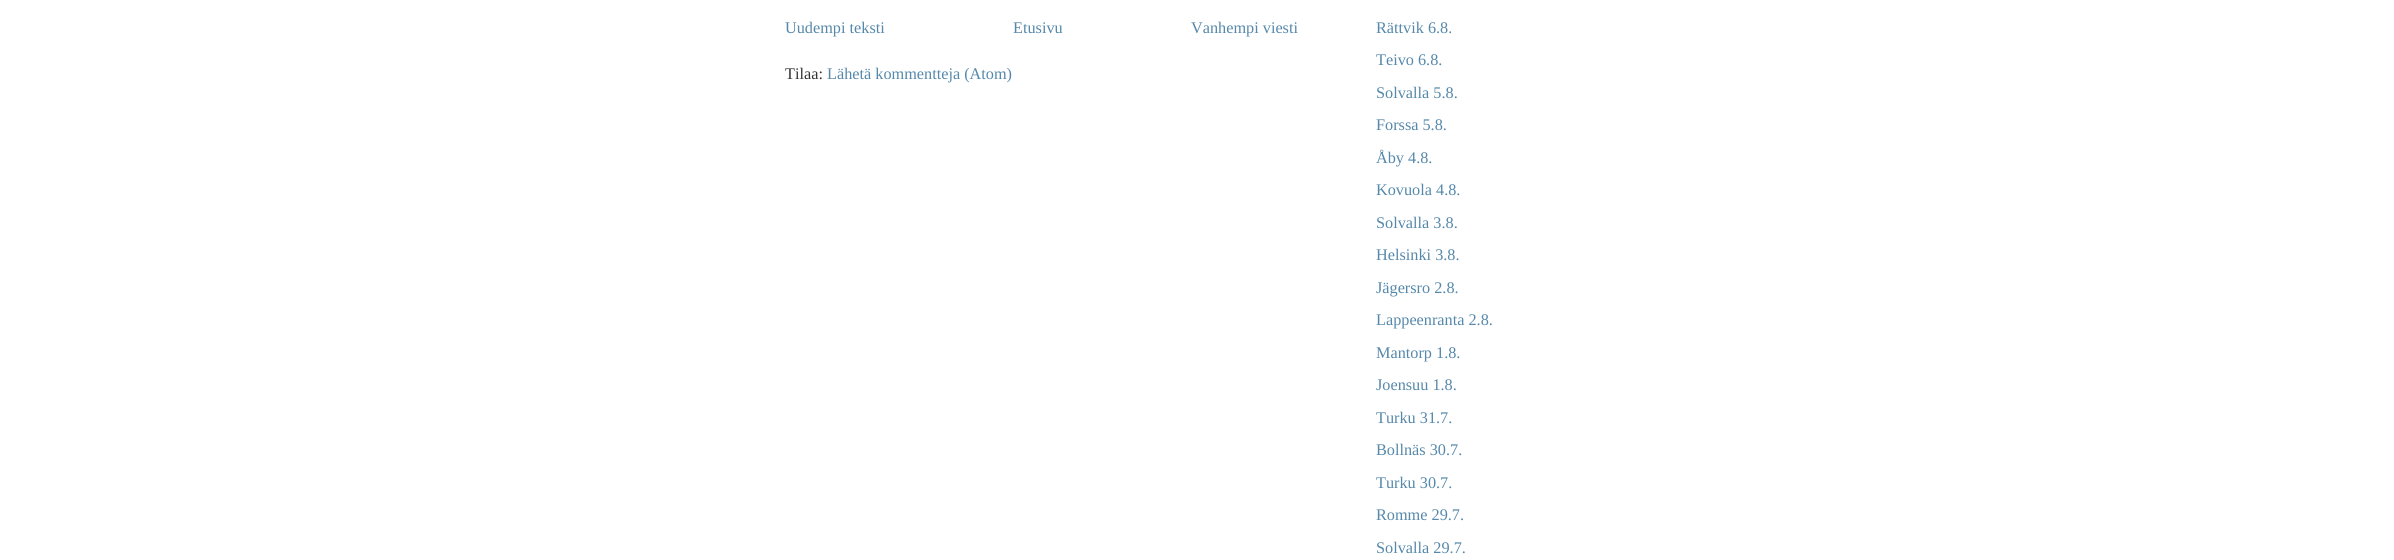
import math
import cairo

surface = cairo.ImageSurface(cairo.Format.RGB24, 2394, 560)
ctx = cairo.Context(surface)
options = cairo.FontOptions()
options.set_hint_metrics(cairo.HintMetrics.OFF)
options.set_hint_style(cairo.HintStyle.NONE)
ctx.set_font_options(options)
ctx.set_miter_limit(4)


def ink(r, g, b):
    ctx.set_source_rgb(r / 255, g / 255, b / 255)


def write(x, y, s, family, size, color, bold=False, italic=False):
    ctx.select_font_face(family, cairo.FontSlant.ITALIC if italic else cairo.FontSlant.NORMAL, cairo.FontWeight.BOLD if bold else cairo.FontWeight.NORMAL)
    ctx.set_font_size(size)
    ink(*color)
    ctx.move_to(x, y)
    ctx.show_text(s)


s1 = dict(family="Liberation Serif", size=16.25, color=(85, 136, 170))
s2 = dict(family="Liberation Serif", size=16.25, color=(51, 51, 51))

ink(255, 255, 255)
ctx.paint()
write(785, 33, "Uudempi teksti", **s1)
write(1013, 33, "Etusivu", **s1)
write(1191, 33, "Vanhempi viesti", **s1)
write(785, 79, "Tilaa:", **s2)
write(827, 79, "Lähetä kommentteja (Atom)", **s1)
write(1376, 33, "Rättvik 6.8.", **s1)
write(1376, 65, "Teivo 6.8.", **s1)
write(1376, 98, "Solvalla 5.8.", **s1)
write(1376, 130, "Forssa 5.8.", **s1)
write(1376, 163, "Åby 4.8.", **s1)
write(1376, 195, "Kovuola 4.8.", **s1)
write(1376, 228, "Solvalla 3.8.", **s1)
write(1376, 260, "Helsinki 3.8.", **s1)
write(1376, 293, "Jägersro 2.8.", **s1)
write(1376, 325, "Lappeenranta 2.8.", **s1)
write(1376, 358, "Mantorp 1.8.", **s1)
write(1376, 390, "Joensuu 1.8.", **s1)
write(1376, 423, "Turku 31.7.", **s1)
write(1376, 455, "Bollnäs 30.7.", **s1)
write(1376, 488, "Turku 30.7.", **s1)
write(1376, 520, "Romme 29.7.", **s1)
write(1376, 553, "Solvalla 29.7.", **s1)
surface.write_to_png("screenshot.png")
